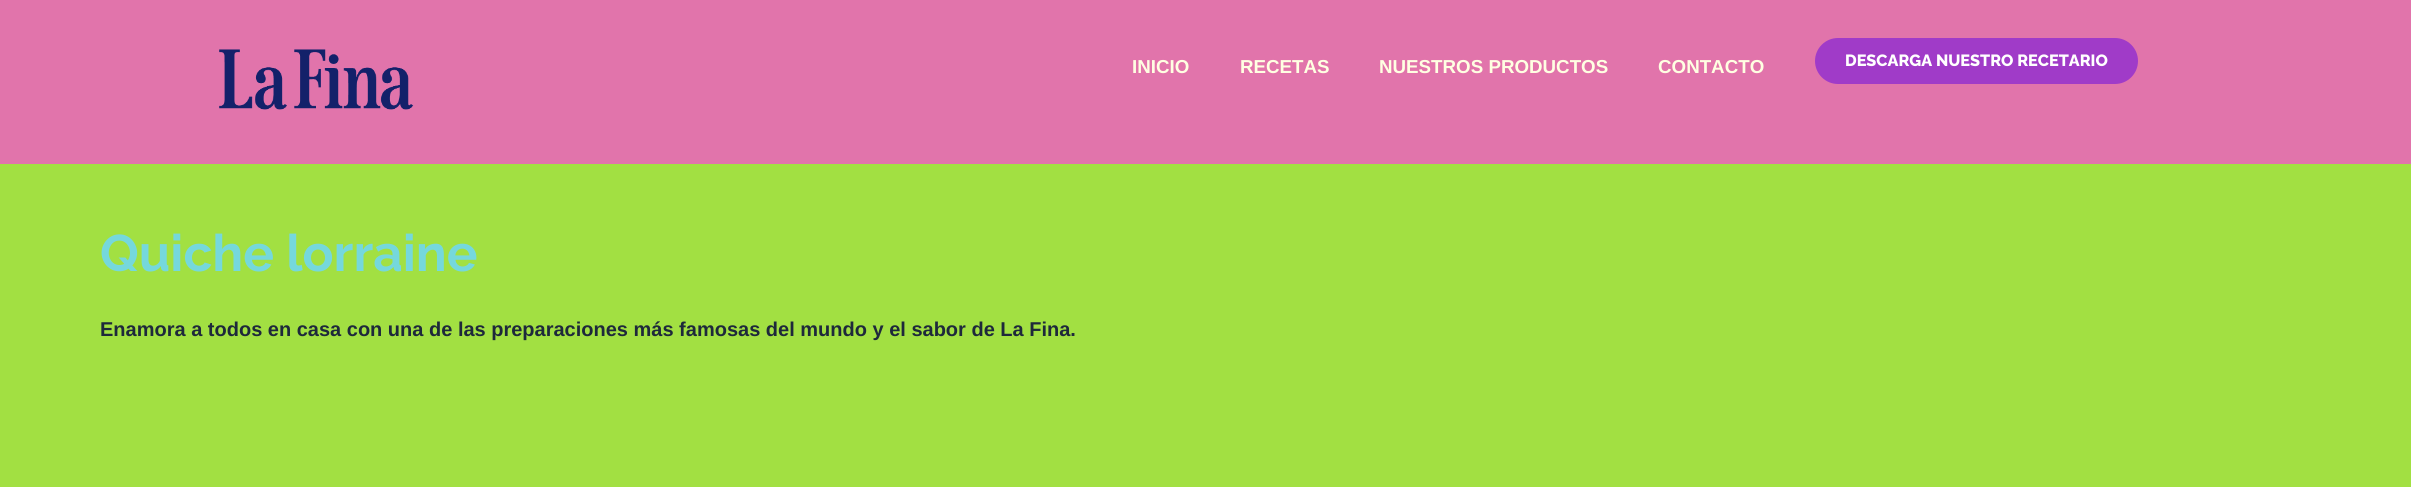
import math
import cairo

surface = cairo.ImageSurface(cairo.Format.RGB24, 2411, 487)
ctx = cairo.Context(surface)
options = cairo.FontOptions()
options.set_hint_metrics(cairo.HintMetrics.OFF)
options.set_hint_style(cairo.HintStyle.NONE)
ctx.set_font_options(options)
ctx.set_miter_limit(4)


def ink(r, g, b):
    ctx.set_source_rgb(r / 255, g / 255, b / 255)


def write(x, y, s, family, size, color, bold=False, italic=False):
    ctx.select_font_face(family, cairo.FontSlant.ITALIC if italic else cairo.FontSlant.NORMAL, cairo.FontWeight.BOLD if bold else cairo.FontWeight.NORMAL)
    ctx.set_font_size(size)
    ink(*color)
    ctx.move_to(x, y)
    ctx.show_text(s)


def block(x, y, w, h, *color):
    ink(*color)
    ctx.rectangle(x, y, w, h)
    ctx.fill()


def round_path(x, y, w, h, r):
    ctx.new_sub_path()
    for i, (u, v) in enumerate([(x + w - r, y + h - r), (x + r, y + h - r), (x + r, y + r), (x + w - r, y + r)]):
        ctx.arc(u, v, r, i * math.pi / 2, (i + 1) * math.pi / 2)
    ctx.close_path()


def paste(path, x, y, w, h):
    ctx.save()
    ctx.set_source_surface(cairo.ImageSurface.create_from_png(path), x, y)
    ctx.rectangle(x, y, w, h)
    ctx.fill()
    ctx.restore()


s1 = dict(family="Liberation Sans", size=18.75, color=(255, 255, 226), bold=True)
s2 = dict(family="Raleway ExtraBold", size=16.25, color=(255, 255, 255))
s3 = dict(family="Raleway", size=51.25, color=(117, 216, 220), bold=True)
s4 = dict(family="Liberation Sans", size=20, color=(30, 41, 59), bold=True)

ink(162, 224, 66)
ctx.paint()
block(0, 0, 2411, 164, 225, 116, 171)
paste("pic1.png", 219, 49, 195, 61)
write(1132, 73, "INICIO", **s1)
write(1240, 73, "RECETAS", **s1)
write(1379, 73, "NUESTROS PRODUCTOS", **s1)
write(1658, 73, "CONTACTO", **s1)
ink(160, 59, 200)
round_path(1815, 38, 323, 46, 23)
ctx.fill()
write(1845, 66, "DESCARGA NUESTRO RECETARIO", **s2)
write(100, 271, "Quiche lorraine", **s3)
write(100, 336, "Enamora a todos en casa con una de las preparaciones más famosas del mundo y el sabor de La Fina.", **s4)
surface.write_to_png("screenshot.png")
